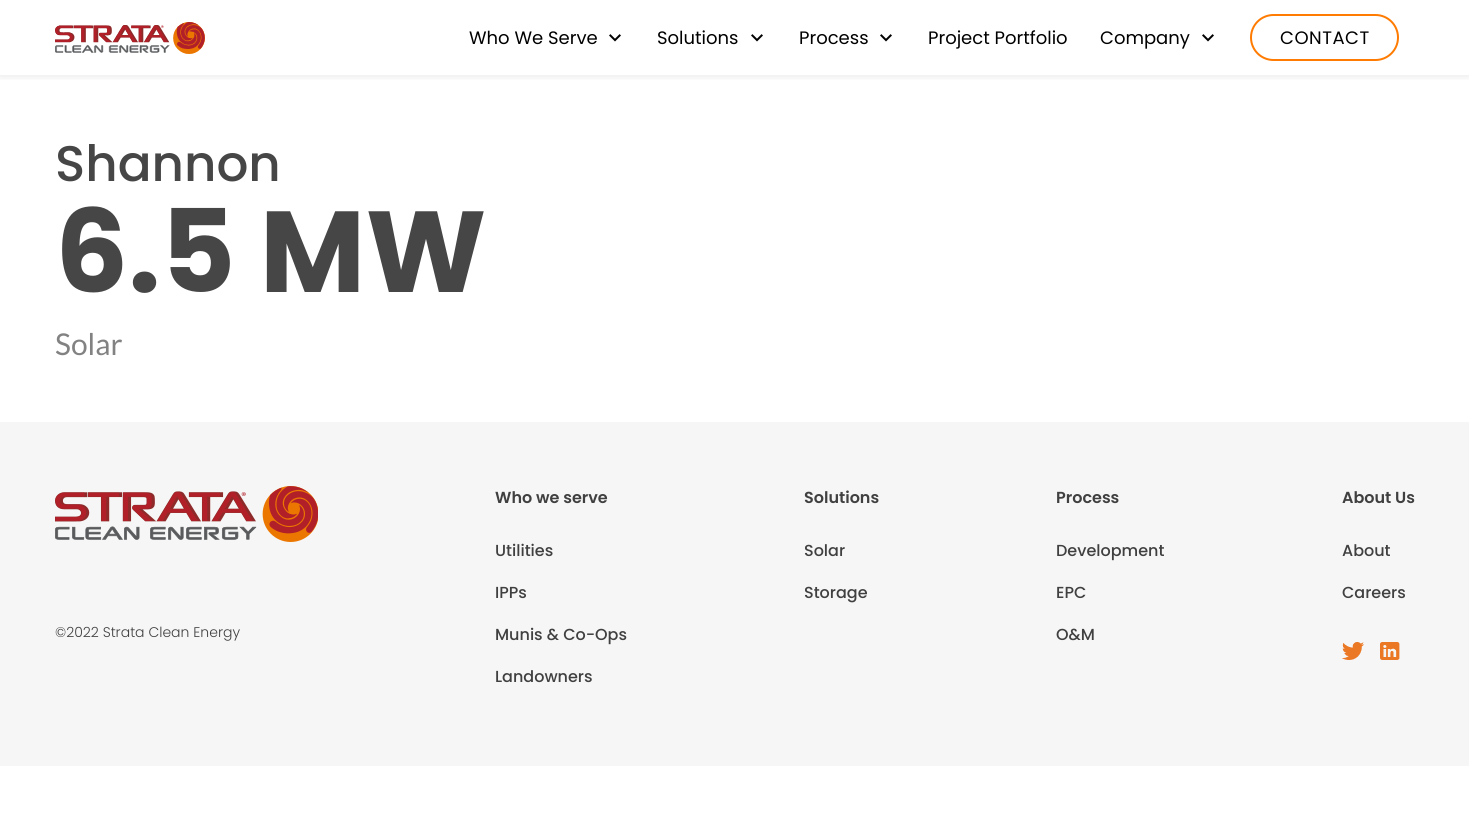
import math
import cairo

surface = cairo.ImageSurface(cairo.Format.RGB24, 1469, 825)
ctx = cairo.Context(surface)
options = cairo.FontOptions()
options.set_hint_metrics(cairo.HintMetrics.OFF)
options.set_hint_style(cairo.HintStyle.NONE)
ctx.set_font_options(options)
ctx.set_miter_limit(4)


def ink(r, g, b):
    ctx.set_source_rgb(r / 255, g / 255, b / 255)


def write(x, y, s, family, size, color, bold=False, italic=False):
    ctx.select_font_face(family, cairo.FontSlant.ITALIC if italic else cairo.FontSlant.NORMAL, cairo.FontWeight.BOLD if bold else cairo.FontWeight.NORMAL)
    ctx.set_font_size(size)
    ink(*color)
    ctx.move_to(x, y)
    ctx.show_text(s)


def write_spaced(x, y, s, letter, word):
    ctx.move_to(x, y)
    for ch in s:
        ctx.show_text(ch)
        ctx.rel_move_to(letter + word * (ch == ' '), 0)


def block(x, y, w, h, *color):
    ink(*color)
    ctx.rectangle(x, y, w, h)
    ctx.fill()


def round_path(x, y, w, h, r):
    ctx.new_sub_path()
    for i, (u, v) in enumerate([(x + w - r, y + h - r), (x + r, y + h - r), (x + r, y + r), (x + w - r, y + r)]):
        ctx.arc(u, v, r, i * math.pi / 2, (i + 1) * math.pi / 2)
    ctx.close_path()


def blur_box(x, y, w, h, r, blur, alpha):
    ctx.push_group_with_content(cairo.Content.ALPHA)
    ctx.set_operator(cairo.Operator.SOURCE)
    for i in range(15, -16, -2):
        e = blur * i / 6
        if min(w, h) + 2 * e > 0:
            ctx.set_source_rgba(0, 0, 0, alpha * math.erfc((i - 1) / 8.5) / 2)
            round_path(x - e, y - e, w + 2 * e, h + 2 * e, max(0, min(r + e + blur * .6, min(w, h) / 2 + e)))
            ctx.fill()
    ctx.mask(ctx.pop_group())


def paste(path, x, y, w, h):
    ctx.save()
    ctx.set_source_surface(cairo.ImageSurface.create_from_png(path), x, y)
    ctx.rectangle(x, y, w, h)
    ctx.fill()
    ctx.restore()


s1 = dict(family="Poppins", size=18, color=(0, 0, 0))
s2 = dict(family="Poppins Medium", size=50, color=(70, 70, 70))
s3 = dict(family="Poppins", size=115, color=(70, 70, 70), bold=True)
s4 = dict(family="Lato", size=30, color=(130, 130, 130))
s5 = dict(family="Poppins SemiBold", size=16, color=(64, 64, 64))
s6 = dict(family="Poppins Medium", size=16, color=(64, 64, 64))
s7 = dict(family="Poppins Light", size=14, color=(64, 64, 64))

ink(255, 255, 255)
ctx.paint()
ctx.save()
ctx.rectangle(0, 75, 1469, 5)
ctx.clip()
ink(0, 0, 0)
blur_box(0, -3, 1469, 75, 0, 6, 0.2)
ctx.restore()
paste("pic1.png", 55, 22, 150, 32)
write(469, 44, "Who We Serve", **s1)
paste("pic2.png", 609, 34, 12, 8)
write(657, 44, "Solutions", **s1)
paste("pic2.png", 751, 34, 12, 8)
write(799, 44, "Process", **s1)
paste("pic2.png", 880, 34, 12, 8)
write(928, 44, "Project Portfolio", **s1)
write(1100, 44, "Company", **s1)
paste("pic2.png", 1202, 34, 12, 8)
round_path(1251, 15, 147, 45, 22.5)
ink(255, 123, 1)
ctx.stroke()
ink(0, 0, 0)
write_spaced(1280, 44, "CONTACT", 0.5, 0)
write(55, 181, "Shannon", **s2)
write(55, 292, "6.5 MW", **s3)
write(55, 355, "Solar", **s4)
block(0, 422, 1469, 344, 246, 246, 246)
write(495, 503, "Who we serve", **s5)
write(495, 556, "Utilities", **s6)
write(495, 598, "IPPs", **s6)
write(495, 640, "Munis & Co-Ops", **s6)
write(495, 682, "Landowners", **s6)
write(804, 503, "Solutions", **s5)
write(804, 556, "Solar", **s6)
write(804, 598, "Storage", **s6)
write(1056, 503, "Process", **s5)
write(1056, 556, "Development", **s6)
write(1056, 598, "EPC", **s6)
write(1056, 640, "O&M", **s6)
write(1342, 503, "About Us", **s5)
write(1342, 556, "About", **s6)
write(1342, 598, "Careers", **s6)
paste("pic3.png", 1342, 642, 22, 18)
paste("pic4.png", 1380, 642, 20, 18)
paste("pic5.png", 55, 486, 263, 56)
write(55, 637, "©2022 Strata Clean Energy", **s7)
surface.write_to_png("screenshot.png")
